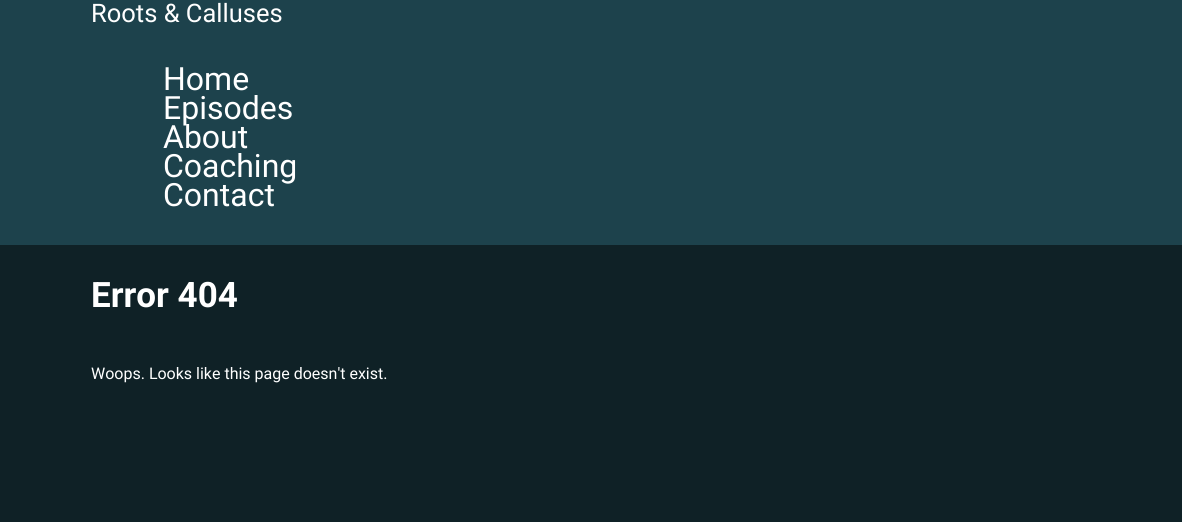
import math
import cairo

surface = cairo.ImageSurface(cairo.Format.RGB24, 1182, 522)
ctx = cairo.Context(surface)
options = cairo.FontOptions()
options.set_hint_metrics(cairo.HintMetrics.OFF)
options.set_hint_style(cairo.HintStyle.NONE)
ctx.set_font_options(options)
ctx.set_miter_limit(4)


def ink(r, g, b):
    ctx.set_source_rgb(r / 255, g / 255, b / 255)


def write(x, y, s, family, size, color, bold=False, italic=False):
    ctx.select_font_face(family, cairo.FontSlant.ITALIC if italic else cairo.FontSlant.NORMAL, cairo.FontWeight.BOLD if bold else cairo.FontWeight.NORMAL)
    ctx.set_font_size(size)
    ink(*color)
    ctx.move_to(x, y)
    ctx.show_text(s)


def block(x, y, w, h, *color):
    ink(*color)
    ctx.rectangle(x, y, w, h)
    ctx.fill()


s1 = dict(family="Roboto", size=25.5, color=(255, 255, 255))
s2 = dict(family="Roboto", size=32, color=(255, 255, 255))
s3 = dict(family="Roboto", size=35, color=(255, 255, 255), bold=True)
s4 = dict(family="Roboto", size=16, color=(255, 255, 255))

ink(15, 33, 38)
ctx.paint()
block(0, 0, 1182, 245, 29, 66, 76)
write(91, 22, "Roots & Calluses", **s1)
write(163, 90, "Home", **s2)
write(163, 119, "Episodes", **s2)
write(163, 148, "About", **s2)
write(163, 177, "Coaching", **s2)
write(163, 206, "Contact", **s2)
write(91, 307, "Error 404", **s3)
write(91, 379, "Woops. Looks like this page doesn't exist.", **s4)
surface.write_to_png("screenshot.png")
